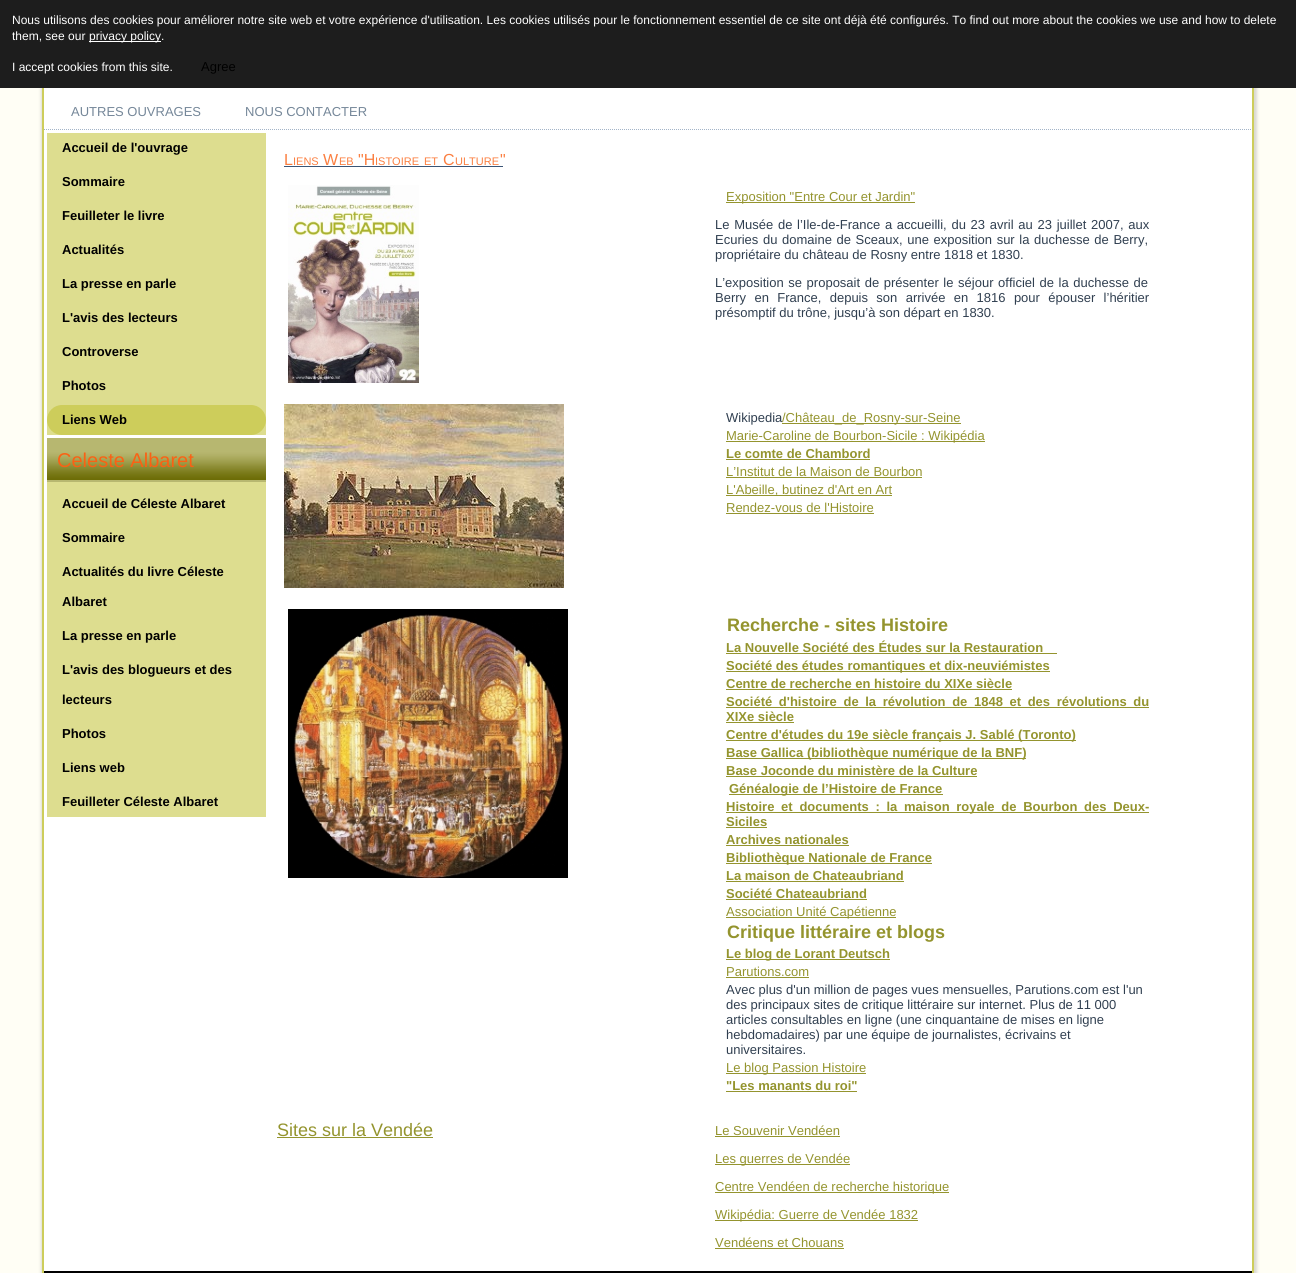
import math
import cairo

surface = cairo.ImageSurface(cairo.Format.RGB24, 1296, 1273)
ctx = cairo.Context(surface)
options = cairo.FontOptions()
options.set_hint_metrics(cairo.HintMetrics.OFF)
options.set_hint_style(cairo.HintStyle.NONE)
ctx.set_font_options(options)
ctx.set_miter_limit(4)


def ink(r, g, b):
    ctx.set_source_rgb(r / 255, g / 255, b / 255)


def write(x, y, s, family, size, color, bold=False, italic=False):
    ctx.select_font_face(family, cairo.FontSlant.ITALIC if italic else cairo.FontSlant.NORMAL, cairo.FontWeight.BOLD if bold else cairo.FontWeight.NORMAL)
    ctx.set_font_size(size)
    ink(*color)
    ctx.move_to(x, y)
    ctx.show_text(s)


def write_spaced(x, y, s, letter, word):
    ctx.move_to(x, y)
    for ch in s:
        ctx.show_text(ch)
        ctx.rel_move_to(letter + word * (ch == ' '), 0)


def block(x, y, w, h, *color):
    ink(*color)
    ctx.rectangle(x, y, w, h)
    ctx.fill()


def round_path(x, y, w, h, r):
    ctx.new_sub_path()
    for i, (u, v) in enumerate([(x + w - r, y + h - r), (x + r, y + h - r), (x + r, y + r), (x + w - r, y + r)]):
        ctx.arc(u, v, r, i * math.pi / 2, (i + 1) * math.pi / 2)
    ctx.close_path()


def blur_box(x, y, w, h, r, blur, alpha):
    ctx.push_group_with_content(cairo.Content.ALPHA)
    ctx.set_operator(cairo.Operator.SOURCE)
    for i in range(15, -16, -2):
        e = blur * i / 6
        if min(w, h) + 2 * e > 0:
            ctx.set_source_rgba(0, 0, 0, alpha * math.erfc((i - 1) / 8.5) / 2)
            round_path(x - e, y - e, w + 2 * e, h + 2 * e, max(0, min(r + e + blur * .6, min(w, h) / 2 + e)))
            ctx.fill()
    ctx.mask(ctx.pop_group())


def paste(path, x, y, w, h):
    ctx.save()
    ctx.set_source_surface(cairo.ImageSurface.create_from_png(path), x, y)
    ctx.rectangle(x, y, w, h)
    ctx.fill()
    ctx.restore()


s1 = dict(family="Liberation Sans", size=12, color=(255, 255, 255))
s2 = dict(family="Liberation Sans", size=13, color=(0, 0, 0))
s3 = dict(family="Liberation Sans", size=13, color=(117, 135, 153))
s4 = dict(family="Liberation Sans", size=13, color=(0, 0, 0), bold=True)
s5 = dict(family="Liberation Sans", size=20, color=(250, 97, 20))
s6 = dict(family="Liberation Sans", size=16, color=(251, 127, 65))
s7 = dict(family="Liberation Sans", size=11, color=(251, 127, 65))
s8 = dict(family="Liberation Sans", size=13, color=(148, 148, 46))
s9 = dict(family="Liberation Sans", size=13, color=(48, 63, 80))
s10 = dict(family="Liberation Sans", size=13, color=(148, 148, 46), bold=True)
s11 = dict(family="Liberation Sans", size=18, color=(148, 148, 46), bold=True)
s12 = dict(family="Liberation Sans", size=18, color=(148, 148, 46))

ink(255, 254, 245)
ctx.paint()
ink(0, 0, 0)
blur_box(41, -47, 1216, 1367, 42, 1.5, 0.15)
block(44, 88, 1208, 1183, 255, 255, 255)
ink(205, 205, 91)
ctx.set_fill_rule(cairo.FillRule.EVEN_ODD)
ctx.new_path()
ctx.move_to(42, -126)
ctx.line_to(1254, -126)
ctx.line_to(1254, 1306)
ctx.curve_to(1254, 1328, 1236, 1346, 1214, 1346)
ctx.line_to(82, 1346)
ctx.curve_to(60, 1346, 42, 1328, 42, 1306)
ctx.close_path()
ctx.move_to(44, -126)
ctx.line_to(1252, -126)
ctx.line_to(1252, 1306)
ctx.curve_to(1252, 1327, 1235, 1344, 1214, 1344)
ctx.line_to(82, 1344)
ctx.curve_to(61, 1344, 44, 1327, 44, 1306)
ctx.close_path()
ctx.fill()
block(0, 0, 1296, 88, 29, 29, 29)
write(12, 24, "Nous utilisons des cookies pour améliorer notre site web et votre expérience d'utilisation. Les cookies utilisés pour le fonctionnement essentiel de ce site ont déjà été configurés. To find out more about the cookies we use and how to delete", **s1)
write(12, 40, "them, see our", **s1)
block(89, 41, 72, 1, 255, 255, 255)
write(89, 40, "privacy policy.", **s1)
write(12, 71, "I accept cookies from this site.", **s1)
write(201, 71, "Agree", **s2)
ctx.new_path()
ctx.move_to(44, 129.5)
ctx.line_to(1252, 129.5)
ink(163, 180, 200)
ctx.set_line_width(1)
ctx.set_dash([1, 1])
ctx.stroke()
write(71, 116, "AUTRES OUVRAGES", **s3)
write(245, 116, "NOUS CONTACTER", **s3)
block(47, 133, 219, 302, 221, 221, 143)
write(62, 152, "Accueil de l'ouvrage", **s4)
write(62, 186, "Sommaire", **s4)
write(62, 220, "Feuilleter le livre", **s4)
write(62, 254, "Actualités", **s4)
write(62, 288, "La presse en parle", **s4)
write(62, 322, "L'avis des lecteurs", **s4)
write(62, 356, "Controverse", **s4)
write(62, 390, "Photos", **s4)
ink(205, 205, 91)
round_path(47, 405, 219, 30, 15)
ctx.fill()
write(62, 424, "Liens Web", **s4)
block(47, 482, 219, 335, 221, 221, 143)
paste("pic1.png", 47, 438, 219, 44)
write(57, 467, "Celeste Albaret", **s5)
write(62, 508, "Accueil de Céleste Albaret", **s4)
write(62, 542, "Sommaire", **s4)
write(62, 576, "Actualités du livre Céleste", **s4)
write(62, 606, "Albaret", **s4)
write(62, 640, "La presse en parle", **s4)
write(62, 674, "L'avis des blogueurs et des", **s4)
write(62, 704, "lecteurs", **s4)
write(62, 738, "Photos", **s4)
write(62, 772, "Liens web", **s4)
write(62, 806, "Feuilleter Céleste Albaret", **s4)
write(284, 165, "L", **s6)
write(323, 165, "W", **s6)
write(358, 165, "\"H", **s6)
write(443, 165, "C", **s6)
write(500, 165, "\"", **s6)
write(293, 165, "IENS", **s7)
block(284, 166, 219, 1, 59, 85, 118)
write(339, 165, "EB", **s7)
write(375, 165, "ISTOIRE", **s7)
write(424, 165, "ET", **s7)
write(455, 165, "ULTURE", **s7)
paste("pic2.png", 288, 185, 131, 198)
block(726, 202, 189, 1, 148, 148, 46)
write(726, 201, "Exposition \"Entre Cour et Jardin\"", **s8)
ink(48, 63, 80)
write_spaced(715, 229, "Le Musée de l’Ile-de-France a accueilli, du 23 avril au 23 juillet 2007, aux", 0, 1.1)
write_spaced(715, 244, "Ecuries du domaine de Sceaux, une exposition sur la duchesse de Berry,", 0, 1)
write(715, 259, "propriétaire du château de Rosny entre 1818 et 1830.", **s9)
write_spaced(715, 287, "L’exposition se proposait de présenter le séjour officiel de la duchesse de", 0, 1)
write_spaced(715, 302, "Berry en France, depuis son arrivée en 1816 pour épouser l’héritier", 0, 4.75)
write(715, 317, "présomptif du trône, jusqu’à son départ en 1830.", **s9)
paste("pic3.png", 284, 404, 280, 184)
write(726, 422, "Wikipedia", **s9)
block(782, 423, 179, 1, 148, 148, 46)
write(782, 422, "/Château_de_Rosny-sur-Seine", **s8)
block(726, 441, 259, 1, 148, 148, 46)
write(726, 440, "Marie-Caroline de Bourbon-Sicile : Wikipédia", **s8)
write(726, 458, "Le comte de Chambord", **s10)
block(726, 459, 144, 1, 148, 148, 46)
write(726, 476, "L’Institut de la Maison de Bourbon", **s8)
block(726, 477, 196, 1, 148, 148, 46)
block(726, 495, 166, 1, 148, 148, 46)
write(726, 494, "L'Abeille, butinez d'Art en Art", **s8)
write(726, 512, "Rendez-vous de l'Histoire", **s8)
block(726, 513, 148, 1, 148, 148, 46)
paste("pic4.png", 288, 609, 280, 269)
write(727, 631, "Recherche - sites Histoire", **s11)
write(726, 652, "La Nouvelle Société des Études sur la Restauration", **s10)
block(726, 653, 331, 1, 148, 148, 46)
block(726, 671, 324, 1, 148, 148, 46)
write(726, 670, "Société des études romantiques et dix-neuviémistes", **s10)
write(726, 688, "Centre de recherche en histoire du XIXe siècle", **s10)
block(726, 689, 286, 1, 148, 148, 46)
write_spaced(726, 706, "Société d'histoire de la révolution de 1848 et des révolutions du", 0, 3)
block(726, 707, 423, 1, 148, 148, 46)
write(726, 721, "XIXe siècle", **s10)
block(726, 722, 68, 1, 148, 148, 46)
block(726, 740, 350, 1, 148, 148, 46)
write(726, 739, "Centre d'études du 19e siècle français J. Sablé (Toronto)", **s10)
block(726, 758, 300, 1, 148, 148, 46)
write(726, 757, "Base Gallica (bibliothèque numérique de la BNF)", **s10)
write(726, 775, "Base Joconde du ministère de la Culture", **s10)
block(726, 776, 251, 1, 148, 148, 46)
block(729, 794, 214, 1, 148, 148, 46)
write(729, 793, "Généalogie de l’Histoire de France", **s10)
block(726, 812, 423, 1, 148, 148, 46)
write_spaced(726, 811, "Histoire et documents : la maison royale de Bourbon des Deux-", 0, 3.1)
write(726, 826, "Siciles", **s10)
block(726, 827, 41, 1, 148, 148, 46)
write(726, 844, "Archives nationales", **s10)
block(726, 845, 123, 1, 148, 148, 46)
block(726, 863, 206, 1, 148, 148, 46)
write(726, 862, "Bibliothèque Nationale de France", **s10)
write(726, 880, "La maison de Chateaubriand", **s10)
block(726, 881, 178, 1, 148, 148, 46)
write(726, 898, "Société Chateaubriand", **s10)
block(726, 899, 141, 1, 148, 148, 46)
block(726, 917, 170, 1, 148, 148, 46)
write(726, 916, "Association Unité Capétienne", **s8)
write(727, 938, "Critique littéraire et blogs", **s11)
block(726, 959, 164, 1, 148, 148, 46)
write(726, 958, "Le blog de Lorant Deutsch", **s10)
write(726, 976, "Parutions.com", **s8)
block(726, 977, 83, 1, 148, 148, 46)
write(726, 994, "Avec plus d'un million de pages vues mensuelles, Parutions.com est l'un", **s9)
write(726, 1009, "des principaux sites de critique littéraire sur internet. Plus de 11 000", **s9)
write(726, 1024, "articles consultables en ligne (une cinquantaine de mises en ligne", **s9)
write(726, 1039, "hebdomadaires) par une équipe de journalistes, écrivains et", **s9)
write(726, 1054, "universitaires.", **s9)
block(726, 1073, 140, 1, 148, 148, 46)
write(726, 1072, "Le blog Passion Histoire", **s8)
write(726, 1090, "\"Les manants du roi\"", **s10)
block(726, 1091, 131, 1, 148, 148, 46)
write(277, 1136, "Sites sur la Vendée", **s12)
block(277, 1137, 156, 1, 148, 148, 46)
write(715, 1135, "Le Souvenir Vendéen", **s8)
block(715, 1136, 125, 1, 148, 148, 46)
block(715, 1164, 135, 1, 148, 148, 46)
write(715, 1163, "Les guerres de Vendée", **s8)
block(715, 1192, 234, 1, 148, 148, 46)
write(715, 1191, "Centre Vendéen de recherche historique", **s8)
block(715, 1220, 203, 1, 148, 148, 46)
write(715, 1219, "Wikipédia: Guerre de Vendée 1832", **s8)
write(715, 1247, "Vendéens et Chouans", **s8)
block(715, 1248, 129, 1, 148, 148, 46)
block(44, 1271, 1208, 2, 0, 0, 0)
surface.write_to_png("screenshot.png")
